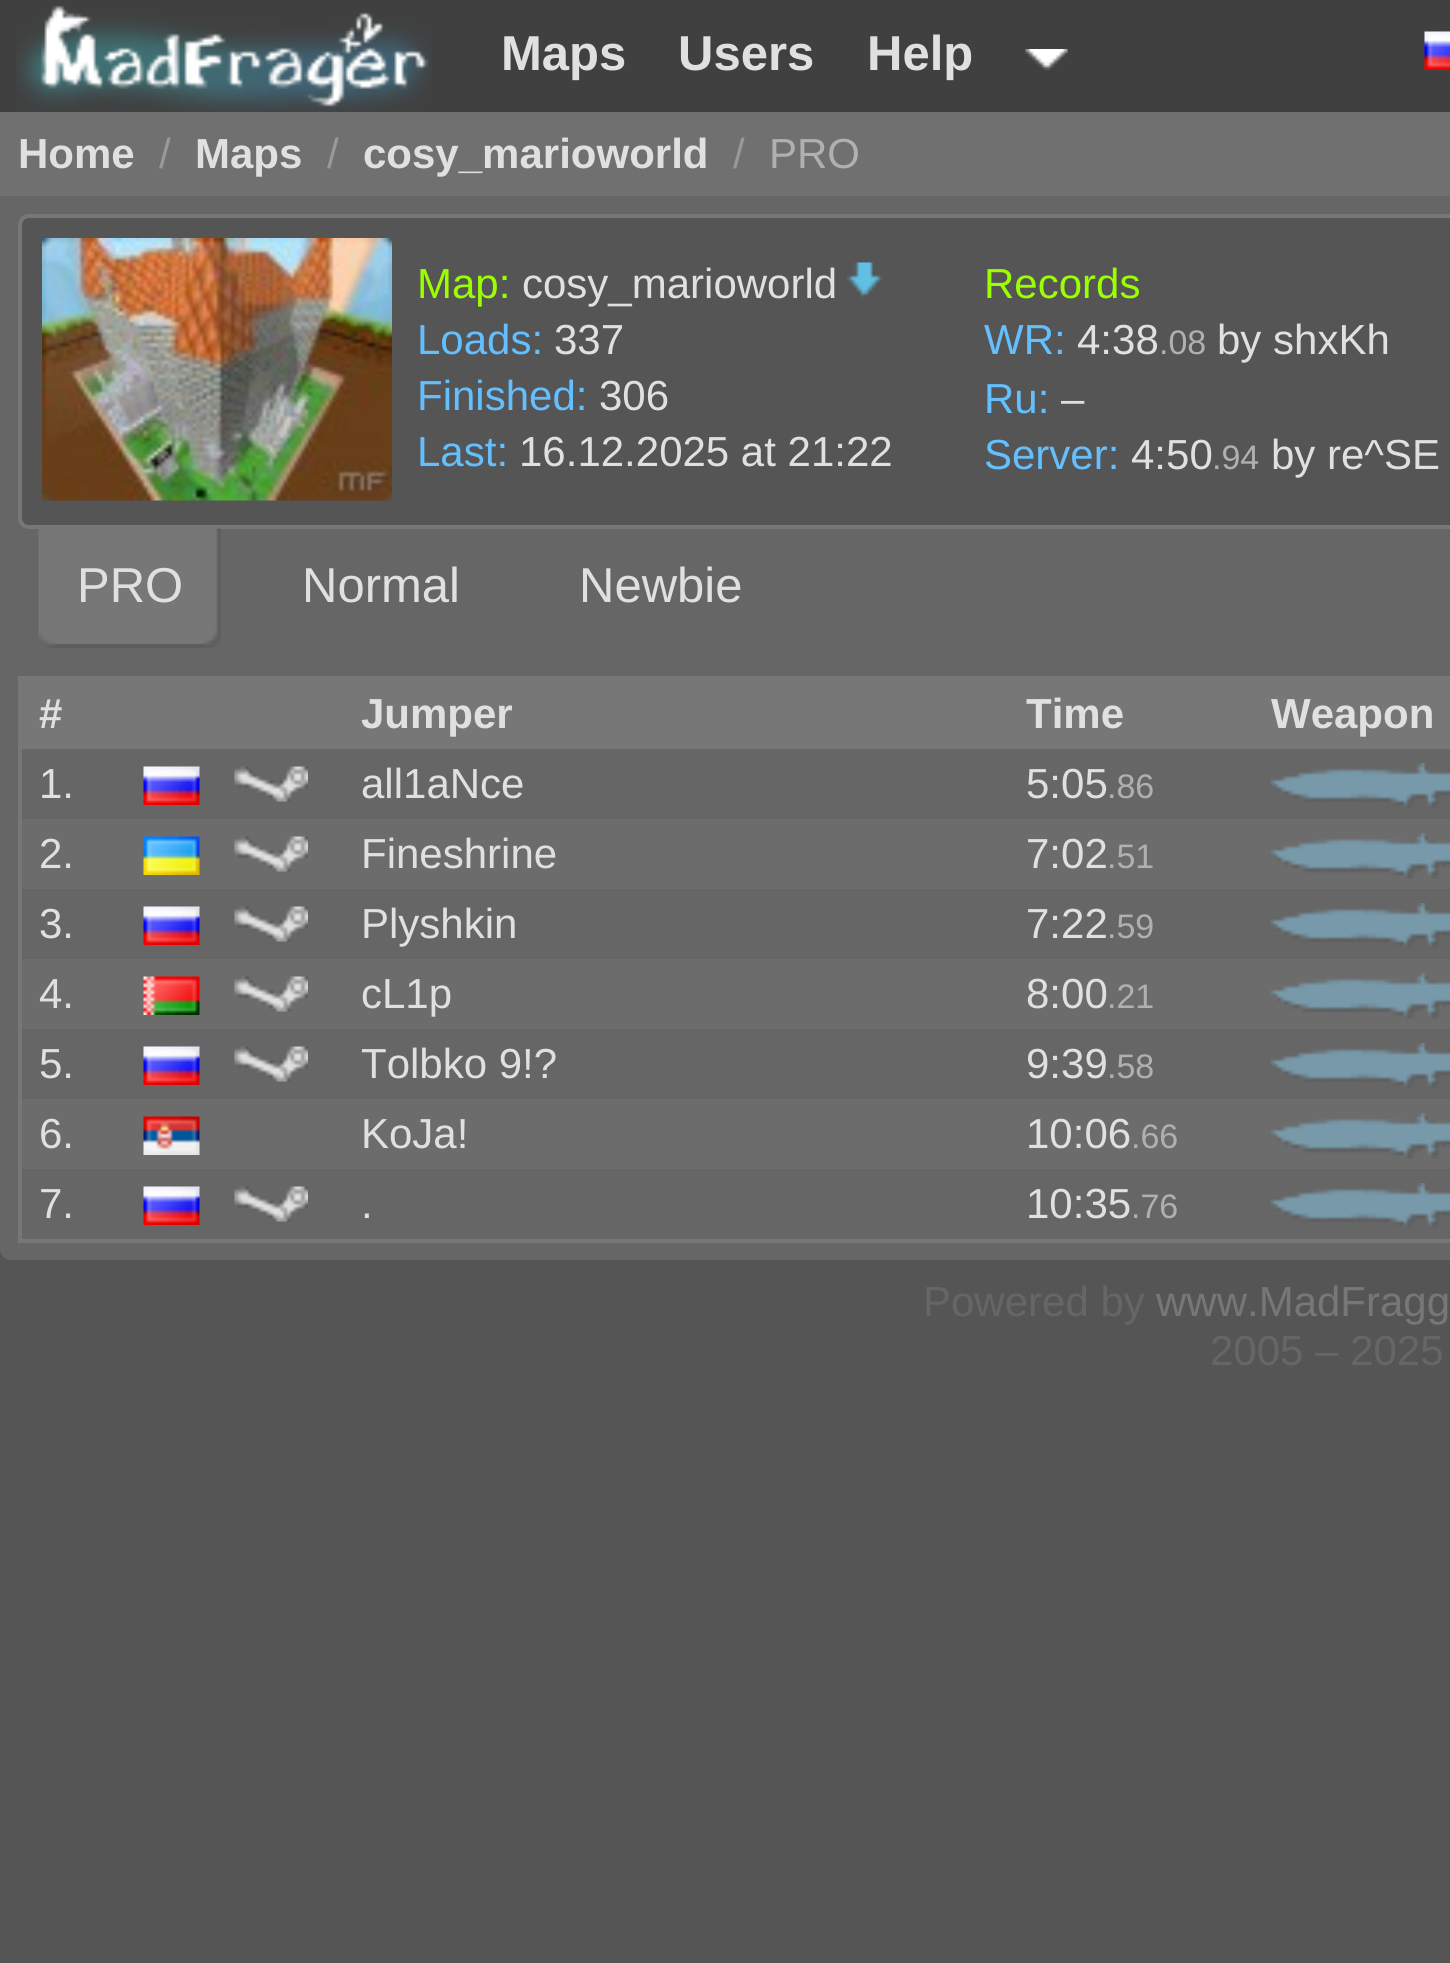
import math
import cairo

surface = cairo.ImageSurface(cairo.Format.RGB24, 1450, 1963)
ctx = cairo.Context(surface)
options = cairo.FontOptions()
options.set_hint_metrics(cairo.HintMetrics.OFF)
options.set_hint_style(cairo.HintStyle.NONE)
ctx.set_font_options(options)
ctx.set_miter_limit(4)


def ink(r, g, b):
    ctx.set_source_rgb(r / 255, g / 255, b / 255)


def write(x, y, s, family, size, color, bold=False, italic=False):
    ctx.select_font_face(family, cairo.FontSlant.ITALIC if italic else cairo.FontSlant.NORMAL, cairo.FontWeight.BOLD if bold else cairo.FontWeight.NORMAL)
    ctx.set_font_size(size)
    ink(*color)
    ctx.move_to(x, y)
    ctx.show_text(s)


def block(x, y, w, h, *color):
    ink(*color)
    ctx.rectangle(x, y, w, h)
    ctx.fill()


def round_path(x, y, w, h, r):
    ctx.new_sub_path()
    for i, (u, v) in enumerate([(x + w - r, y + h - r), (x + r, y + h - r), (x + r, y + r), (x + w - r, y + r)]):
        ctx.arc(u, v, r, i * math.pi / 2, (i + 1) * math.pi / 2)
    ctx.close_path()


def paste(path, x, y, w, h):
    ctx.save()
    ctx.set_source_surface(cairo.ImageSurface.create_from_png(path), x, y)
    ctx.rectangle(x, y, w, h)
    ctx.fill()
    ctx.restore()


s1 = dict(family="Liberation Sans", size=49, color=(224, 224, 224), bold=True)
s2 = dict(family="Liberation Sans", size=42, color=(224, 224, 224), bold=True)
s3 = dict(family="Liberation Sans", size=42, color=(153, 153, 153))
s4 = dict(family="Liberation Sans", size=42, color=(176, 176, 176))
s5 = dict(family="Liberation Sans", size=42, color=(156, 255, 0))
s6 = dict(family="Liberation Sans", size=42, color=(224, 224, 224))
s7 = dict(family="Liberation Sans", size=42, color=(100, 191, 255))
s8 = dict(family="Liberation Sans", size=34, color=(176, 176, 176))
s9 = dict(family="Liberation Sans", size=49, color=(224, 224, 224))
s10 = dict(family="Liberation Sans", size=42, color=(102, 102, 102))
s11 = dict(family="Liberation Sans", size=42, color=(119, 119, 119))

ink(85, 85, 85)
ctx.paint()
block(0, 0, 1450, 112, 64, 64, 64)
paste("pic1.png", 16, 5, 416, 107)
write(501, 70, "Maps", **s1)
write(678, 70, "Users", **s1)
write(867, 70, "Help", **s1)
paste("pic2.png", 1025, 49, 43, 21)
paste("pic3.png", 1424, 31, 26, 39)
block(0, 112, 1450, 84, 112, 112, 112)
write(18, 168, "Home", **s2)
write(159, 168, "/", **s3)
write(195, 168, "Maps", **s2)
write(327, 168, "/", **s3)
write(363, 168, "cosy_marioworld", **s2)
write(733, 168, "/", **s3)
write(769, 168, "PRO", **s4)
ink(102, 102, 102)
ctx.new_path()
ctx.move_to(0, 196)
ctx.line_to(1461, 196)
ctx.line_to(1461, 1249)
ctx.curve_to(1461, 1255, 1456, 1260, 1450, 1260)
ctx.line_to(11, 1260)
ctx.curve_to(5, 1260, 0, 1255, 0, 1249)
ctx.close_path()
ctx.fill()
ink(85, 85, 85)
round_path(20, 216, 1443, 311, 9)
ctx.fill_preserve()
ink(119, 119, 119)
ctx.set_line_width(4)
ctx.stroke()
paste("pic4.png", 42, 238, 350, 263)
write(417, 298, "Map:", **s5)
write(522, 298, "cosy_marioworld", **s6)
paste("pic5.png", 847, 262, 35, 36)
write(417, 354, "Loads:", **s7)
write(554, 354, "337", **s6)
write(417, 410, "Finished:", **s7)
write(599, 410, "306", **s6)
write(417, 466, "Last:", **s7)
write(519, 466, "16.12.2025 at 21:22", **s6)
write(984, 298, "Records", **s5)
write(984, 354, "WR:", **s7)
write(1077, 354, "4:38", **s6)
write(1159, 354, ".08", **s8)
write(1217, 354, "by shxKh", **s6)
write(984, 413, "Ru:", **s7)
write(1061, 413, "–", **s6)
write(984, 469, "Server:", **s7)
write(1131, 469, "4:50", **s6)
write(1212, 469, ".94", **s8)
write(1271, 469, "by re^SE", **s6)
paste("pic6.png", 38, 529, 18, 119)
block(56, 529, 147, 115, 119, 119, 119)
block(56, 644, 147, 4, 92, 92, 92)
write(77, 602, "PRO", **s9)
paste("pic7.png", 203, 528, 18, 120)
write(302, 602, "Normal", **s9)
write(579, 602, "Newbie", **s9)
block(18, 676, 1432, 4, 119, 119, 119)
block(18, 1239, 1432, 4, 119, 119, 119)
block(18, 676, 4, 567, 119, 119, 119)
block(22, 680, 1428, 69, 119, 119, 119)
write(39, 728, "#", **s2)
write(361, 728, "Jumper", **s2)
write(1026, 728, "Time", **s2)
write(1271, 728, "Weapon", **s2)
write(39, 798, "1.", **s6)
paste("pic8.png", 143, 766, 57, 39)
paste("pic9.png", 234, 766, 74, 36)
write(361, 798, "all1aNce", **s6)
write(1026, 798, "5:05", **s6)
write(1107, 798, ".86", **s8)
paste("pic10.png", 1270, 763, 180, 45)
block(22, 819, 1428, 70, 108, 108, 108)
write(39, 868, "2.", **s6)
paste("pic11.png", 143, 836, 57, 39)
paste("pic12.png", 234, 836, 74, 36)
write(361, 868, "Fineshrine", **s6)
write(1026, 868, "7:02", **s6)
write(1107, 868, ".51", **s8)
paste("pic13.png", 1270, 833, 180, 46)
write(39, 938, "3.", **s6)
paste("pic8.png", 143, 906, 57, 39)
paste("pic9.png", 234, 906, 74, 36)
write(361, 938, "Plyshkin", **s6)
write(1026, 938, "7:22", **s6)
write(1107, 938, ".59", **s8)
paste("pic10.png", 1270, 903, 180, 45)
block(22, 959, 1428, 70, 108, 108, 108)
write(39, 1008, "4.", **s6)
paste("pic14.png", 143, 976, 57, 39)
paste("pic12.png", 234, 976, 74, 36)
write(361, 1008, "cL1p", **s6)
write(1026, 1008, "8:00", **s6)
write(1107, 1008, ".21", **s8)
paste("pic13.png", 1270, 973, 180, 46)
write(39, 1078, "5.", **s6)
paste("pic8.png", 143, 1046, 57, 39)
paste("pic9.png", 234, 1046, 74, 36)
write(361, 1078, "Tolbko 9!?", **s6)
write(1026, 1078, "9:39", **s6)
write(1107, 1078, ".58", **s8)
paste("pic10.png", 1270, 1043, 180, 45)
block(22, 1099, 1428, 70, 108, 108, 108)
write(39, 1148, "6.", **s6)
paste("pic15.png", 143, 1116, 57, 39)
write(361, 1148, "KoJa!", **s6)
write(1026, 1148, "10:06", **s6)
write(1131, 1148, ".66", **s8)
paste("pic13.png", 1270, 1113, 180, 46)
write(39, 1218, "7.", **s6)
paste("pic8.png", 143, 1186, 57, 39)
paste("pic9.png", 234, 1186, 74, 36)
write(361, 1218, ".", **s6)
write(1026, 1218, "10:35", **s6)
write(1131, 1218, ".76", **s8)
paste("pic10.png", 1270, 1183, 180, 45)
write(923, 1316, "Powered by", **s10)
write(1156, 1316, "www.MadFragg", **s11)
write(1210, 1365, "2005 – 2025", **s10)
surface.write_to_png("screenshot.png")
